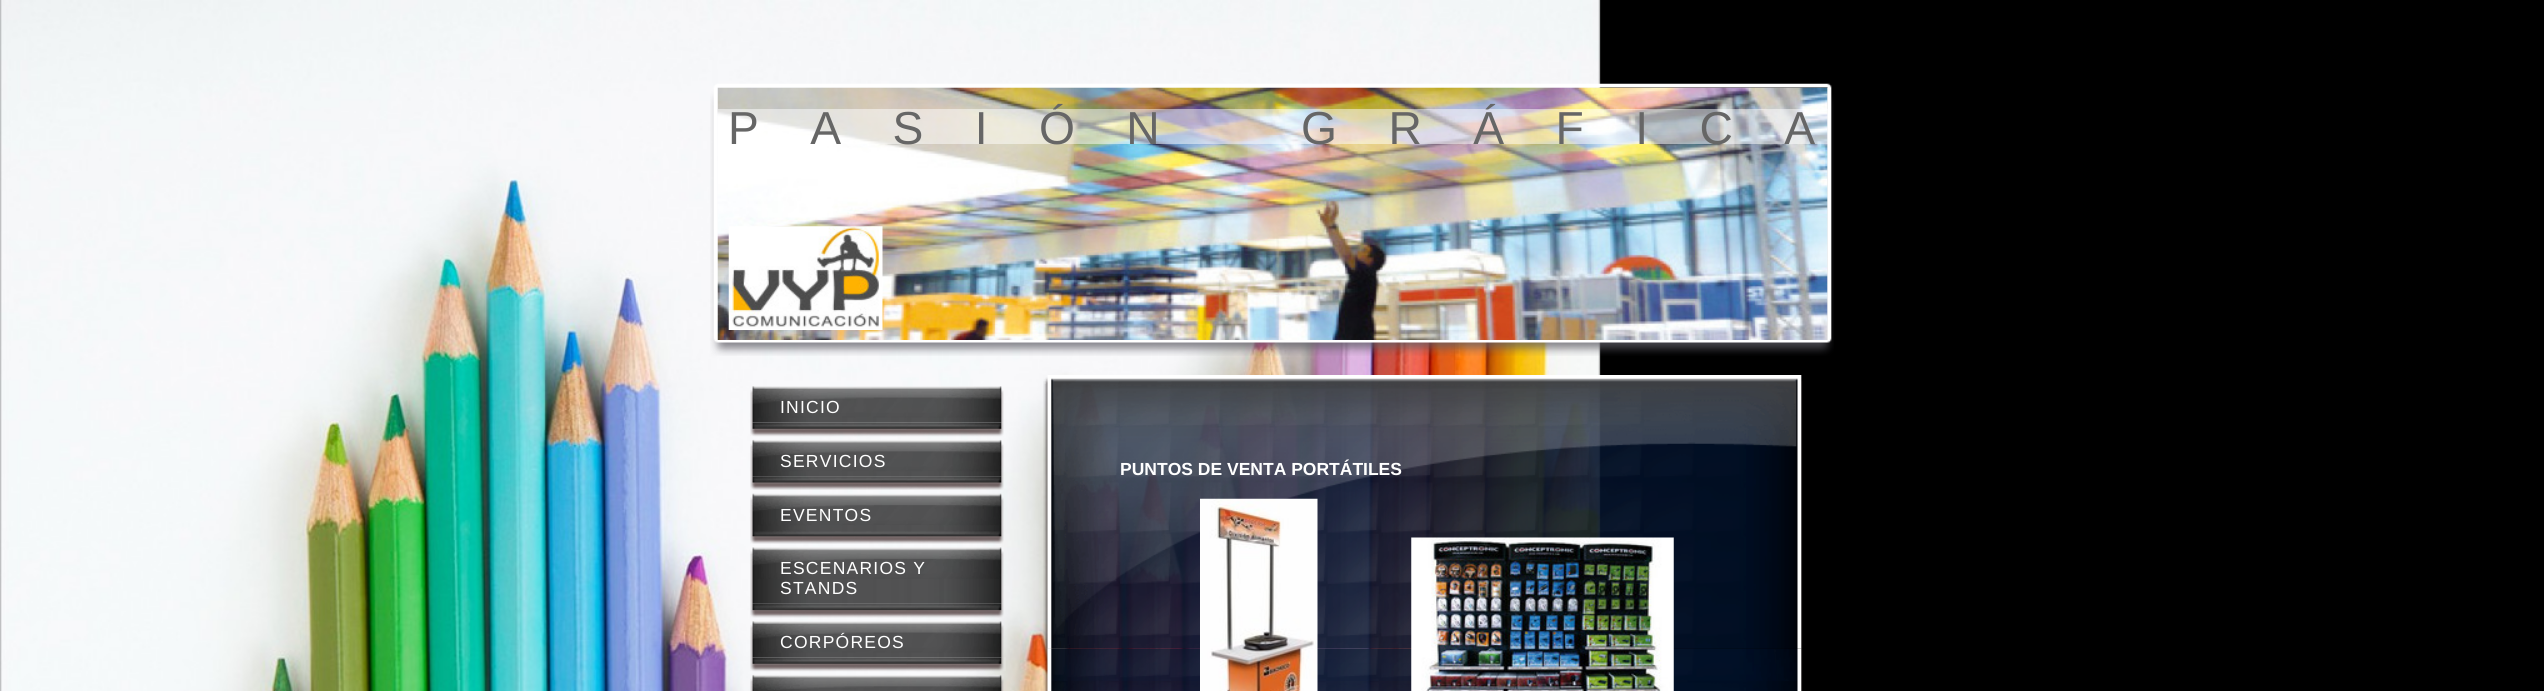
import math
import cairo

surface = cairo.ImageSurface(cairo.Format.RGB24, 2544, 691)
ctx = cairo.Context(surface)
options = cairo.FontOptions()
options.set_hint_metrics(cairo.HintMetrics.OFF)
options.set_hint_style(cairo.HintStyle.NONE)
ctx.set_font_options(options)
ctx.set_miter_limit(4)


def ink(r, g, b):
    ctx.set_source_rgb(r / 255, g / 255, b / 255)


def write(x, y, s, family, size, color, bold=False, italic=False):
    ctx.select_font_face(family, cairo.FontSlant.ITALIC if italic else cairo.FontSlant.NORMAL, cairo.FontWeight.BOLD if bold else cairo.FontWeight.NORMAL)
    ctx.set_font_size(size)
    ink(*color)
    ctx.move_to(x, y)
    ctx.show_text(s)


def write_spaced(x, y, s, letter, word):
    ctx.move_to(x, y)
    for ch in s:
        ctx.show_text(ch)
        ctx.rel_move_to(letter + word * (ch == ' '), 0)


def block(x, y, w, h, *color):
    ink(*color)
    ctx.rectangle(x, y, w, h)
    ctx.fill()


def paste(path, x, y, w, h):
    ctx.save()
    ctx.set_source_surface(cairo.ImageSurface.create_from_png(path), x, y)
    ctx.rectangle(x, y, w, h)
    ctx.fill()
    ctx.restore()


s1 = dict(family="Liberation Sans", size=46.25, color=(102, 102, 102))
s2 = dict(family="Liberation Sans", size=17.5, color=(255, 255, 255), bold=True)

ink(0, 0, 0)
ctx.paint()
paste("pic1.png", 0, 0, 1601, 691)
paste("pic2.png", 710, 83, 1124, 273)
block(1827, 88, 1, 252, 238, 238, 238)
paste("pic3.png", 717, 87, 1111, 253)
ctx.set_source_rgba(1, 1, 1, 0.5)
ctx.rectangle(718, 109, 1110, 35)
ctx.fill()
write(728, 144, "P    A    S    I    Ó    N           G    R    Á    F    I    C    A", **s1)
paste("pic4.png", 728, 226, 155, 104)
paste("pic5.png", 750, 422, 254, 15)
paste("pic6.png", 750, 386, 254, 37)
ctx.set_font_size(17.5)
ink(255, 255, 255)
write_spaced(780, 413, "INICIO", 1.25, 0)
paste("pic7.png", 750, 476, 254, 14)
paste("pic8.png", 750, 439, 254, 38)
write_spaced(780, 467, "SERVICIOS", 1.25, 0)
paste("pic9.png", 750, 530, 254, 14)
paste("pic10.png", 750, 493, 254, 37)
write_spaced(780, 521, "EVENTOS", 1.25, 0)
paste("pic11.png", 750, 603, 254, 15)
paste("pic12.png", 750, 547, 254, 57)
write_spaced(780, 574, "ESCENARIOS Y", 1.25, 0)
write_spaced(780, 594, "STANDS", 1.25, 0)
paste("pic13.png", 750, 657, 256, 15)
paste("pic14.png", 750, 621, 254, 37)
write_spaced(780, 648, "CORPÓREOS", 1.25, 0)
paste("pic15.png", 750, 674, 254, 17)
paste("pic16.png", 1043, 375, 760, 274)
paste("pic17.png", 1043, 648, 760, 43)
write(1120, 475, "PUNTOS DE VENTA PORTÁTILES", **s2)
paste("pic18.png", 1200, 498, 118, 193)
paste("pic19.png", 1411, 537, 263, 154)
surface.write_to_png("screenshot.png")
